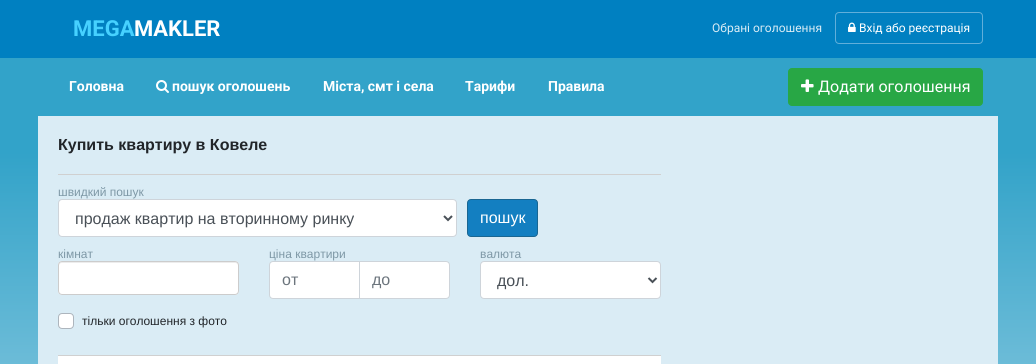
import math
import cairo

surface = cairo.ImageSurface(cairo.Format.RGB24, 1036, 364)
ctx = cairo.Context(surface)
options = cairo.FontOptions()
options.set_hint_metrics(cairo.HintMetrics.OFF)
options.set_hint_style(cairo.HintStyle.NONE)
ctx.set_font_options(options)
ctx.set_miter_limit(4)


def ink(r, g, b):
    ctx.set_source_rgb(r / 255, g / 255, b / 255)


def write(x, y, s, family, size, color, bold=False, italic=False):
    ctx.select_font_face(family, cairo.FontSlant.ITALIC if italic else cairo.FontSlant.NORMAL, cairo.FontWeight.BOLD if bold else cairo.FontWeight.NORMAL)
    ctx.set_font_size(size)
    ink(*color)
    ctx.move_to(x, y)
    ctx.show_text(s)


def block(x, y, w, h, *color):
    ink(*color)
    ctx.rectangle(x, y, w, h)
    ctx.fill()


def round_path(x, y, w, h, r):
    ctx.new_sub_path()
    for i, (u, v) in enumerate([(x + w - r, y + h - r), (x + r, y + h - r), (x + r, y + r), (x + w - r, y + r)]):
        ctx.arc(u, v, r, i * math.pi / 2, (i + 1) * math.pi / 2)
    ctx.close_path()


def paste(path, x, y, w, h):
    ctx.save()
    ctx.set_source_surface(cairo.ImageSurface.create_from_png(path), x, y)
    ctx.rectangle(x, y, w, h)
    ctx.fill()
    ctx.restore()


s1 = dict(family="Roboto", size=22, color=(70, 209, 255), bold=True)
s2 = dict(family="Roboto", size=22, color=(255, 255, 255), bold=True)
s3 = dict(family="Roboto", size=12, color=(218, 236, 245))
s4 = dict(family="Roboto", size=12, color=(255, 255, 255))
s5 = dict(family="Roboto", size=14, color=(255, 255, 255), bold=True)
s6 = dict(family="Roboto", size=16, color=(255, 255, 255))
s7 = dict(family="Liberation Sans", size=16, color=(33, 37, 41), bold=True)
s8 = dict(family="Liberation Sans", size=12, color=(126, 152, 166))
s9 = dict(family="Liberation Sans", size=16, color=(73, 80, 87))
s10 = dict(family="Liberation Sans", size=16, color=(255, 255, 255))
s11 = dict(family="Liberation Sans", size=16, color=(108, 117, 125))
s12 = dict(family="Liberation Sans", size=12, color=(33, 37, 41))

ink(255, 255, 255)
ctx.paint()
paste("pic1.png", 0, 58, 1036, 306)
block(0, 0, 1036, 58, 0, 128, 193)
write(73, 36, "MEGA", **s1)
write(134, 36, "MAKLER", **s2)
write(712, 32, "Обрані оголошення", **s3)
round_path(835.5, 12.5, 147, 31, 3.5)
ink(97, 175, 218)
ctx.set_line_width(1)
ctx.stroke()
paste("pic2.png", 848, 22, 8, 10)
write(859, 32, "Вхід або реєстрація", **s4)
write(69, 91, "Головна", **s5)
paste("pic3.png", 156, 80, 13, 13)
write(172, 91, "пошук оголошень", **s5)
write(323, 91, "Міста, смт і села", **s5)
write(465, 91, "Тарифи", **s5)
write(548, 91, "Правила", **s5)
ink(40, 167, 69)
round_path(788.5, 68.5, 194, 37, 3.5)
ctx.fill_preserve()
ctx.stroke()
paste("pic4.png", 801, 79, 13, 13)
write(818, 92, "Додати оголошення", **s6)
block(38, 116, 960, 248, 218, 236, 245)
write(58, 150, "Купить квартиру в Ковеле", **s7)
block(58, 174, 603, 1, 208, 208, 208)
write(58, 196, "швидкий пошук", **s8)
ink(255, 255, 255)
round_path(58.5, 199.5, 398, 37, 3.5)
ctx.fill_preserve()
ink(206, 212, 218)
ctx.stroke()
ctx.new_path()
ctx.move_to(444, 216)
ctx.line_to(448, 220)
ctx.line_to(452, 216)
ink(73, 80, 87)
ctx.set_line_width(2)
ctx.stroke()
write(75, 224, "продаж квартир на вторинному ринку", **s9)
ink(19, 127, 193)
round_path(467.5, 199.5, 70, 37, 3.5)
ctx.fill_preserve()
ink(25, 102, 146)
ctx.set_line_width(1)
ctx.stroke()
write(480, 223, "пошук", **s10)
write(58, 258, "кімнат", **s8)
ink(255, 255, 255)
round_path(58, 261, 181, 34, 4)
ctx.fill()
ink(236, 236, 236)
ctx.new_path()
ctx.move_to(62, 263)
ctx.line_to(235, 263)
ctx.curve_to(237, 263, 238, 264, 238, 266)
ctx.line_to(238, 265)
ctx.curve_to(238, 263, 237, 262, 235, 262)
ctx.line_to(62, 262)
ctx.curve_to(60, 262, 59, 263, 59, 265)
ctx.line_to(59, 266)
ctx.curve_to(59, 264, 60, 263, 62, 263)
ctx.close_path()
ctx.fill()
round_path(58.5, 261.5, 180, 33, 3.5)
ink(204, 204, 204)
ctx.stroke()
write(269, 258, "ціна квартири", **s8)
ink(255, 255, 255)
ctx.new_path()
ctx.move_to(273, 261.5)
ctx.line_to(359.5, 261.5)
ctx.line_to(359.5, 298.5)
ctx.line_to(273, 298.5)
ctx.curve_to(271, 298.5, 269.5, 297, 269.5, 295)
ctx.line_to(269.5, 265)
ctx.curve_to(269.5, 263, 271, 261.5, 273, 261.5)
ctx.close_path()
ctx.fill_preserve()
ink(206, 212, 218)
ctx.stroke()
write(282, 285, "от", **s11)
ink(255, 255, 255)
ctx.new_path()
ctx.move_to(359.5, 261.5)
ctx.line_to(446, 261.5)
ctx.curve_to(448, 261.5, 449.5, 263, 449.5, 265)
ctx.line_to(449.5, 295)
ctx.curve_to(449.5, 297, 448, 298.5, 446, 298.5)
ctx.line_to(359.5, 298.5)
ctx.close_path()
ctx.fill_preserve()
ink(206, 212, 218)
ctx.stroke()
write(372, 285, "до", **s11)
write(480, 258, "валюта", **s8)
ink(255, 255, 255)
round_path(480.5, 261.5, 180, 37, 3.5)
ctx.fill_preserve()
ink(206, 212, 218)
ctx.stroke()
ctx.new_path()
ctx.move_to(648.5, 278)
ctx.line_to(652.5, 282)
ctx.line_to(656.5, 278)
ink(73, 80, 87)
ctx.set_line_width(2)
ctx.stroke()
write(497, 286, "дол.", **s9)
ink(255, 255, 255)
round_path(58.5, 313.5, 15, 15, 3.5)
ctx.fill_preserve()
ink(173, 181, 189)
ctx.set_line_width(1)
ctx.stroke()
write(82, 325, "тільки оголошення з фото", **s12)
block(58, 356, 603, 8, 255, 255, 255)
block(58, 355, 603, 1, 208, 208, 208)
surface.write_to_png("screenshot.png")
